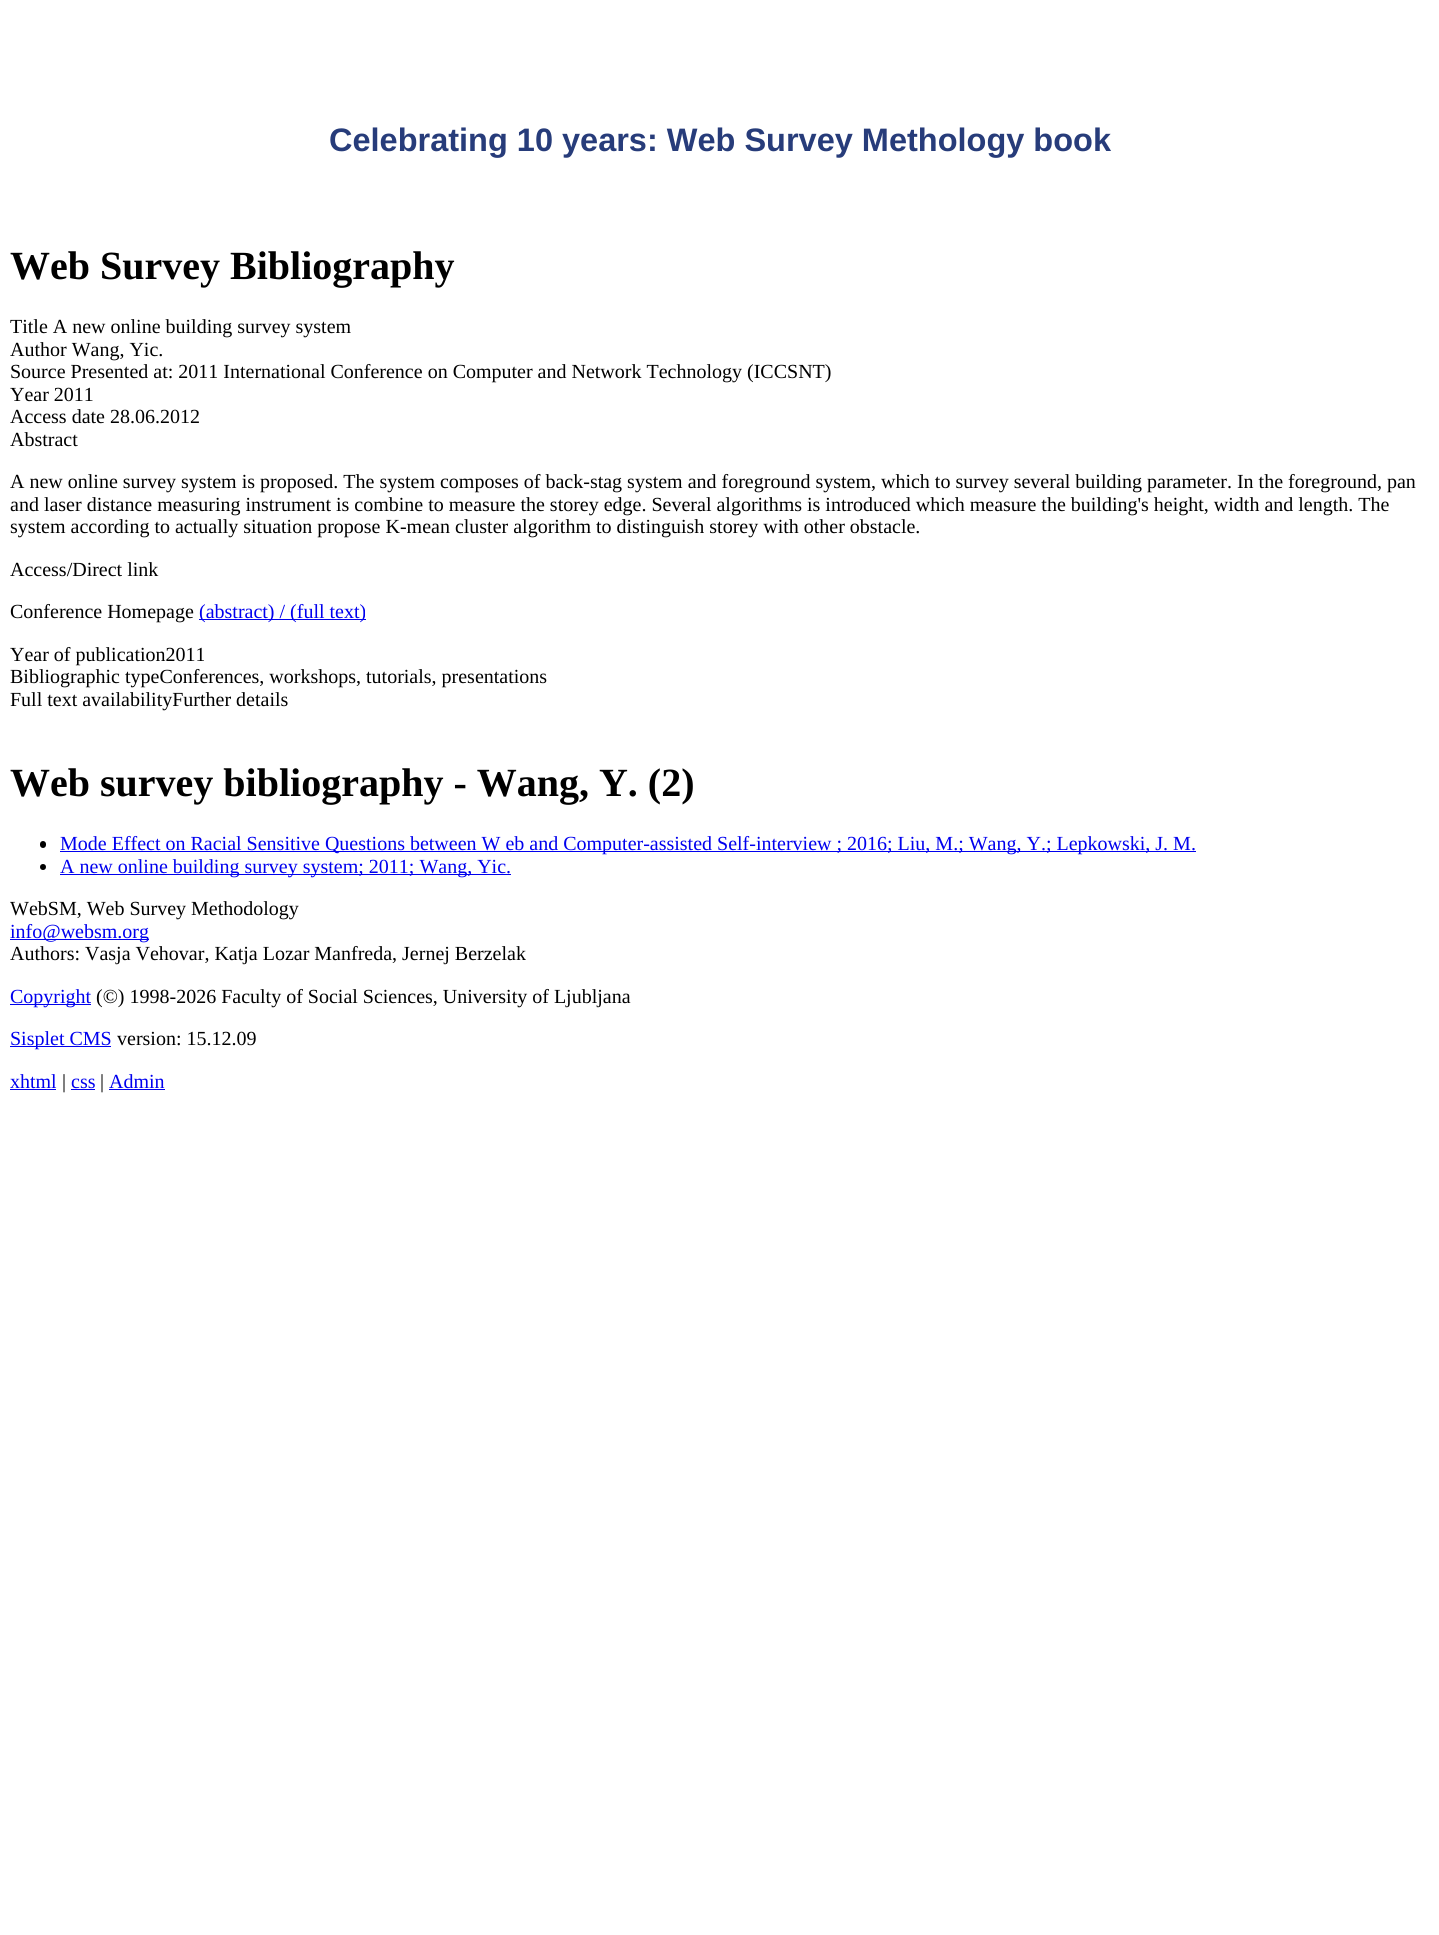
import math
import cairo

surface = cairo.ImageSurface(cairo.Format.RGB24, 1439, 1935)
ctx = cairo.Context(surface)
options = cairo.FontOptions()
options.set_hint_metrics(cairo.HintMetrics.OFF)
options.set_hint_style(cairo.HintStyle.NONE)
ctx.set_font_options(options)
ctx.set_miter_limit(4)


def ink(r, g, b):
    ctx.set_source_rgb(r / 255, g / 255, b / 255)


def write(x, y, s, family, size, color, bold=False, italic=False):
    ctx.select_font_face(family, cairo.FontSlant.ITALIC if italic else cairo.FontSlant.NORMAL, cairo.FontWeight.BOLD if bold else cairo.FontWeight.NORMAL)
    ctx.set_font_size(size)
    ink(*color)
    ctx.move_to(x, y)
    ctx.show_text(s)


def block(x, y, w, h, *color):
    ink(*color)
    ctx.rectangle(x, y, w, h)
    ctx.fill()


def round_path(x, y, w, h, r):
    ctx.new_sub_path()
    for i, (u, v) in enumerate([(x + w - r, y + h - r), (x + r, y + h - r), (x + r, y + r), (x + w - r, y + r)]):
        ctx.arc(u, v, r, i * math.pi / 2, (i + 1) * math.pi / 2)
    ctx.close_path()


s1 = dict(family="Liberation Sans", size=32.5, color=(39, 60, 122), bold=True)
s2 = dict(family="Liberation Serif", size=40, color=(0, 0, 0), bold=True)
s3 = dict(family="Liberation Serif", size=20, color=(0, 0, 0))
s4 = dict(family="Liberation Serif", size=20, color=(0, 0, 238))

ink(255, 255, 255)
ctx.paint()
write(329, 151, "Celebrating 10 years: Web Survey Methology book", **s1)
write(10, 279, "Web Survey Bibliography", **s2)
write(10, 333, "Title A new online building survey system", **s3)
write(10, 356, "Author Wang, Yic.", **s3)
write(10, 378, "Source Presented at: 2011 International Conference on Computer and Network Technology (ICCSNT)", **s3)
write(10, 401, "Year 2011", **s3)
write(10, 423, "Access date 28.06.2012", **s3)
write(10, 446, "Abstract", **s3)
write(10, 488, "A new online survey system is proposed. The system composes of back-stag system and foreground system, which to survey several building parameter. In the foreground, pan", **s3)
write(10, 511, "and laser distance measuring instrument is combine to measure the storey edge. Several algorithms is introduced which measure the building's height, width and length. The", **s3)
write(10, 533, "system according to actually situation propose K-mean cluster algorithm to distinguish storey with other obstacle.", **s3)
write(10, 576, "Access/Direct link", **s3)
write(10, 618, "Conference Homepage", **s3)
block(199, 619, 167, 1, 0, 0, 238)
write(199, 618, "(abstract) / (full text)", **s4)
write(10, 661, "Year of publication2011", **s3)
write(10, 683, "Bibliographic typeConferences, workshops, tutorials, presentations", **s3)
write(10, 706, "Full text availabilityFurther details", **s3)
write(10, 796, "Web survey bibliography - Wang, Y. (2)", **s2)
round_path(40, 841, 6, 7, 3)
ctx.fill()
block(60, 851, 1136, 1, 0, 0, 238)
write(60, 850, "Mode Effect on Racial Sensitive Questions between W eb and Computer-assisted Self-interview ; 2016; Liu, M.; Wang, Y.; Lepkowski, J. M.", **s4)
ink(0, 0, 0)
ctx.new_path()
ctx.arc(43, 867, 3, 0, 2 * math.pi)
ctx.fill()
block(60, 874, 451, 1, 0, 0, 238)
write(60, 873, "A new online building survey system; 2011; Wang, Yic.", **s4)
write(10, 915, "WebSM, Web Survey Methodology", **s3)
block(10, 939, 139, 1, 0, 0, 238)
write(10, 938, "info@websm.org", **s4)
write(10, 960, "Authors: Vasja Vehovar, Katja Lozar Manfreda, Jernej Berzelak", **s3)
block(10, 1004, 81, 1, 0, 0, 238)
write(10, 1003, "Copyright", **s4)
write(96, 1003, "(©) 1998-2026 Faculty of Social Sciences, University of Ljubljana", **s3)
block(10, 1046, 101, 1, 0, 0, 238)
write(10, 1045, "Sisplet CMS", **s4)
write(117, 1045, "version: 15.12.09", **s3)
write(10, 1088, "xhtml", **s4)
block(10, 1089, 46, 1, 0, 0, 238)
write(62, 1088, "|", **s3)
write(71, 1088, "css", **s4)
block(71, 1089, 24, 1, 0, 0, 238)
write(100, 1088, "|", **s3)
write(109, 1088, "Admin", **s4)
block(109, 1089, 56, 1, 0, 0, 238)
surface.write_to_png("screenshot.png")
